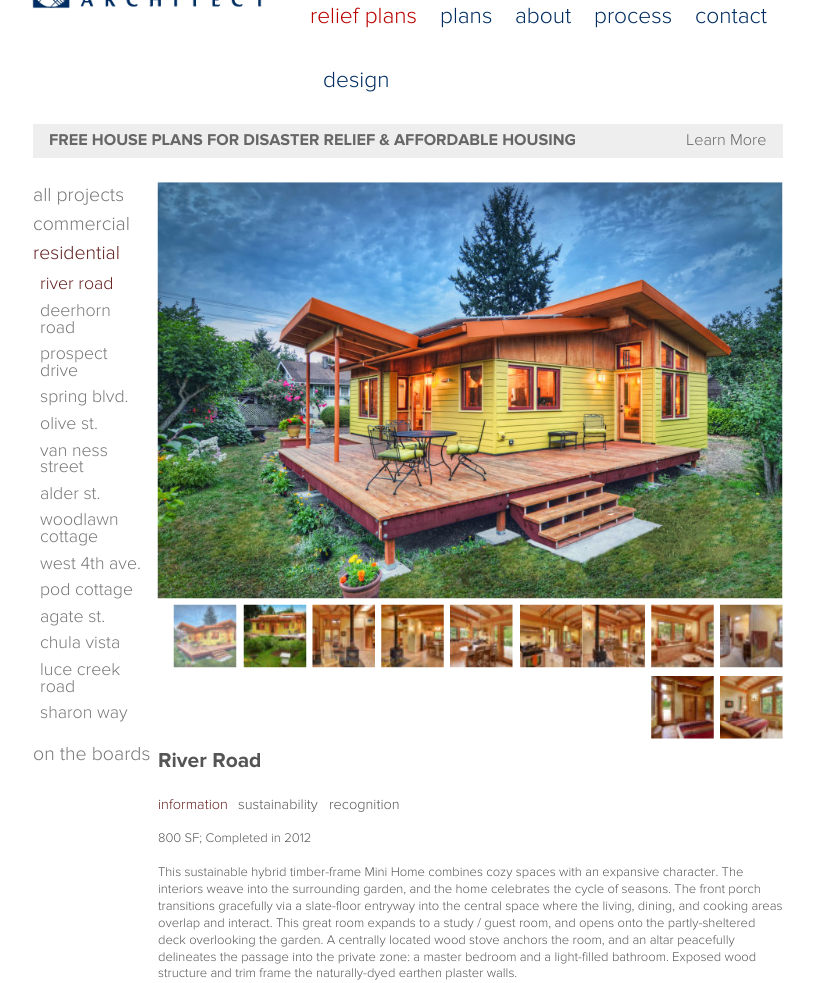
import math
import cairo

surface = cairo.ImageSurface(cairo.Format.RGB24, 814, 983)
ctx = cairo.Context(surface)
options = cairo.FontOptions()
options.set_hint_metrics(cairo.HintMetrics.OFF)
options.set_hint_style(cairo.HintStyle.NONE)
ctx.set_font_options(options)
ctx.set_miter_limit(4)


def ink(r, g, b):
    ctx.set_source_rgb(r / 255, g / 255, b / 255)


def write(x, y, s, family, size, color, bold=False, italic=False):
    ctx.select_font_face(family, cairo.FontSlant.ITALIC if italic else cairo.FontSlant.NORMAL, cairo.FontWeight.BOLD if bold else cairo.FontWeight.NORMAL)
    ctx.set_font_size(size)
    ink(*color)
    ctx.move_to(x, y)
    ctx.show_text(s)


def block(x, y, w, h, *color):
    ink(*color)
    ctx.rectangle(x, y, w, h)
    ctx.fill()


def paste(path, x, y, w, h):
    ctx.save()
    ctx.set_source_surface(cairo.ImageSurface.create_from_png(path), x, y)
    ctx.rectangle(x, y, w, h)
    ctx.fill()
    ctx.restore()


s1 = dict(family="Proxima Nova Light", size=22.75, color=(187, 0, 0))
s2 = dict(family="Proxima Nova Light", size=22.75, color=(0, 44, 97))
s3 = dict(family="Proxima Nova", size=16.25, color=(102, 102, 102), bold=True)
s4 = dict(family="Proxima Nova Light", size=16.25, color=(102, 102, 102))
s5 = dict(family="Proxima Nova Light", size=19.5, color=(119, 119, 119))
s6 = dict(family="Proxima Nova Light", size=19.5, color=(98, 30, 30))
s7 = dict(family="Proxima Nova Light", size=17.75, color=(98, 30, 30))
s8 = dict(family="Proxima Nova Light", size=17.75, color=(119, 119, 119))
s9 = dict(family="Proxima Nova", size=21, color=(85, 85, 85), bold=True)
s10 = dict(family="Proxima Nova Light", size=14.5, color=(98, 30, 30))
s11 = dict(family="Proxima Nova Light", size=14.5, color=(85, 85, 85))
s12 = dict(family="Proxima Nova Light", size=13, color=(85, 85, 85))

ink(255, 255, 255)
ctx.paint()
paste("pic1.png", 32, 0, 230, 9)
write(310, 23, "relief plans", **s1)
write(440, 23, "plans", **s2)
write(515, 23, "about", **s2)
write(594, 23, "process", **s2)
write(695, 23, "contact", **s2)
write(323, 87, "design", **s2)
block(33, 124, 750, 34, 238, 238, 238)
write(49, 145, "FREE HOUSE PLANS FOR DISASTER RELIEF & AFFORDABLE HOUSING", **s3)
write(686, 145, "Learn More", **s4)
write(33, 201, "all projects", **s5)
write(33, 230, "commercial", **s5)
write(33, 259, "residential", **s6)
write(40, 289, "river road", **s7)
write(40, 316, "deerhorn", **s8)
write(40, 333, "road", **s8)
write(40, 359, "prospect", **s8)
write(40, 376, "drive", **s8)
write(40, 402, "spring blvd.", **s8)
write(40, 429, "olive st.", **s8)
write(40, 456, "van ness", **s8)
write(40, 472, "street", **s8)
write(40, 499, "alder st.", **s8)
write(40, 525, "woodlawn", **s8)
write(40, 542, "cottage", **s8)
write(40, 569, "west 4th ave.", **s8)
write(40, 595, "pod cottage", **s8)
write(40, 622, "agate st.", **s8)
write(40, 648, "chula vista", **s8)
write(40, 675, "luce creek", **s8)
write(40, 692, "road", **s8)
write(40, 718, "sharon way", **s8)
write(33, 760, "on the boards", **s5)
paste("pic2.png", 157, 182, 626, 417)
paste("pic3.png", 173, 604, 64, 64)
paste("pic4.png", 243, 604, 64, 64)
paste("pic5.png", 312, 604, 63, 64)
paste("pic6.png", 381, 604, 63, 64)
paste("pic7.png", 450, 604, 63, 64)
paste("pic8.png", 520, 604, 63, 64)
paste("pic9.png", 582, 604, 63, 64)
paste("pic10.png", 651, 604, 63, 64)
paste("pic11.png", 720, 604, 63, 64)
paste("pic12.png", 651, 676, 63, 63)
paste("pic13.png", 720, 676, 63, 63)
write(158, 767, "River Road", **s9)
write(158, 809, "information", **s10)
write(238, 809, "sustainability", **s11)
write(329, 809, "recognition", **s11)
write(158, 842, "800 SF; Completed in 2012", **s12)
write(158, 876, "This sustainable hybrid timber-frame Mini Home combines cozy spaces with an expansive character. The", **s12)
write(158, 893, "interiors weave into the surrounding garden, and the home celebrates the cycle of seasons. The front porch", **s12)
write(158, 910, "transitions gracefully via a slate-floor entryway into the central space where the living, dining, and cooking areas", **s12)
write(158, 927, "overlap and interact. This great room expands to a study / guest room, and opens onto the partly-sheltered", **s12)
write(158, 944, "deck overlooking the garden. A centrally located wood stove anchors the room, and an altar peacefully", **s12)
write(158, 961, "delineates the passage into the private zone: a master bedroom and a light-filled bathroom. Exposed wood", **s12)
write(158, 977, "structure and trim frame the naturally-dyed earthen plaster walls.", **s12)
surface.write_to_png("screenshot.png")
